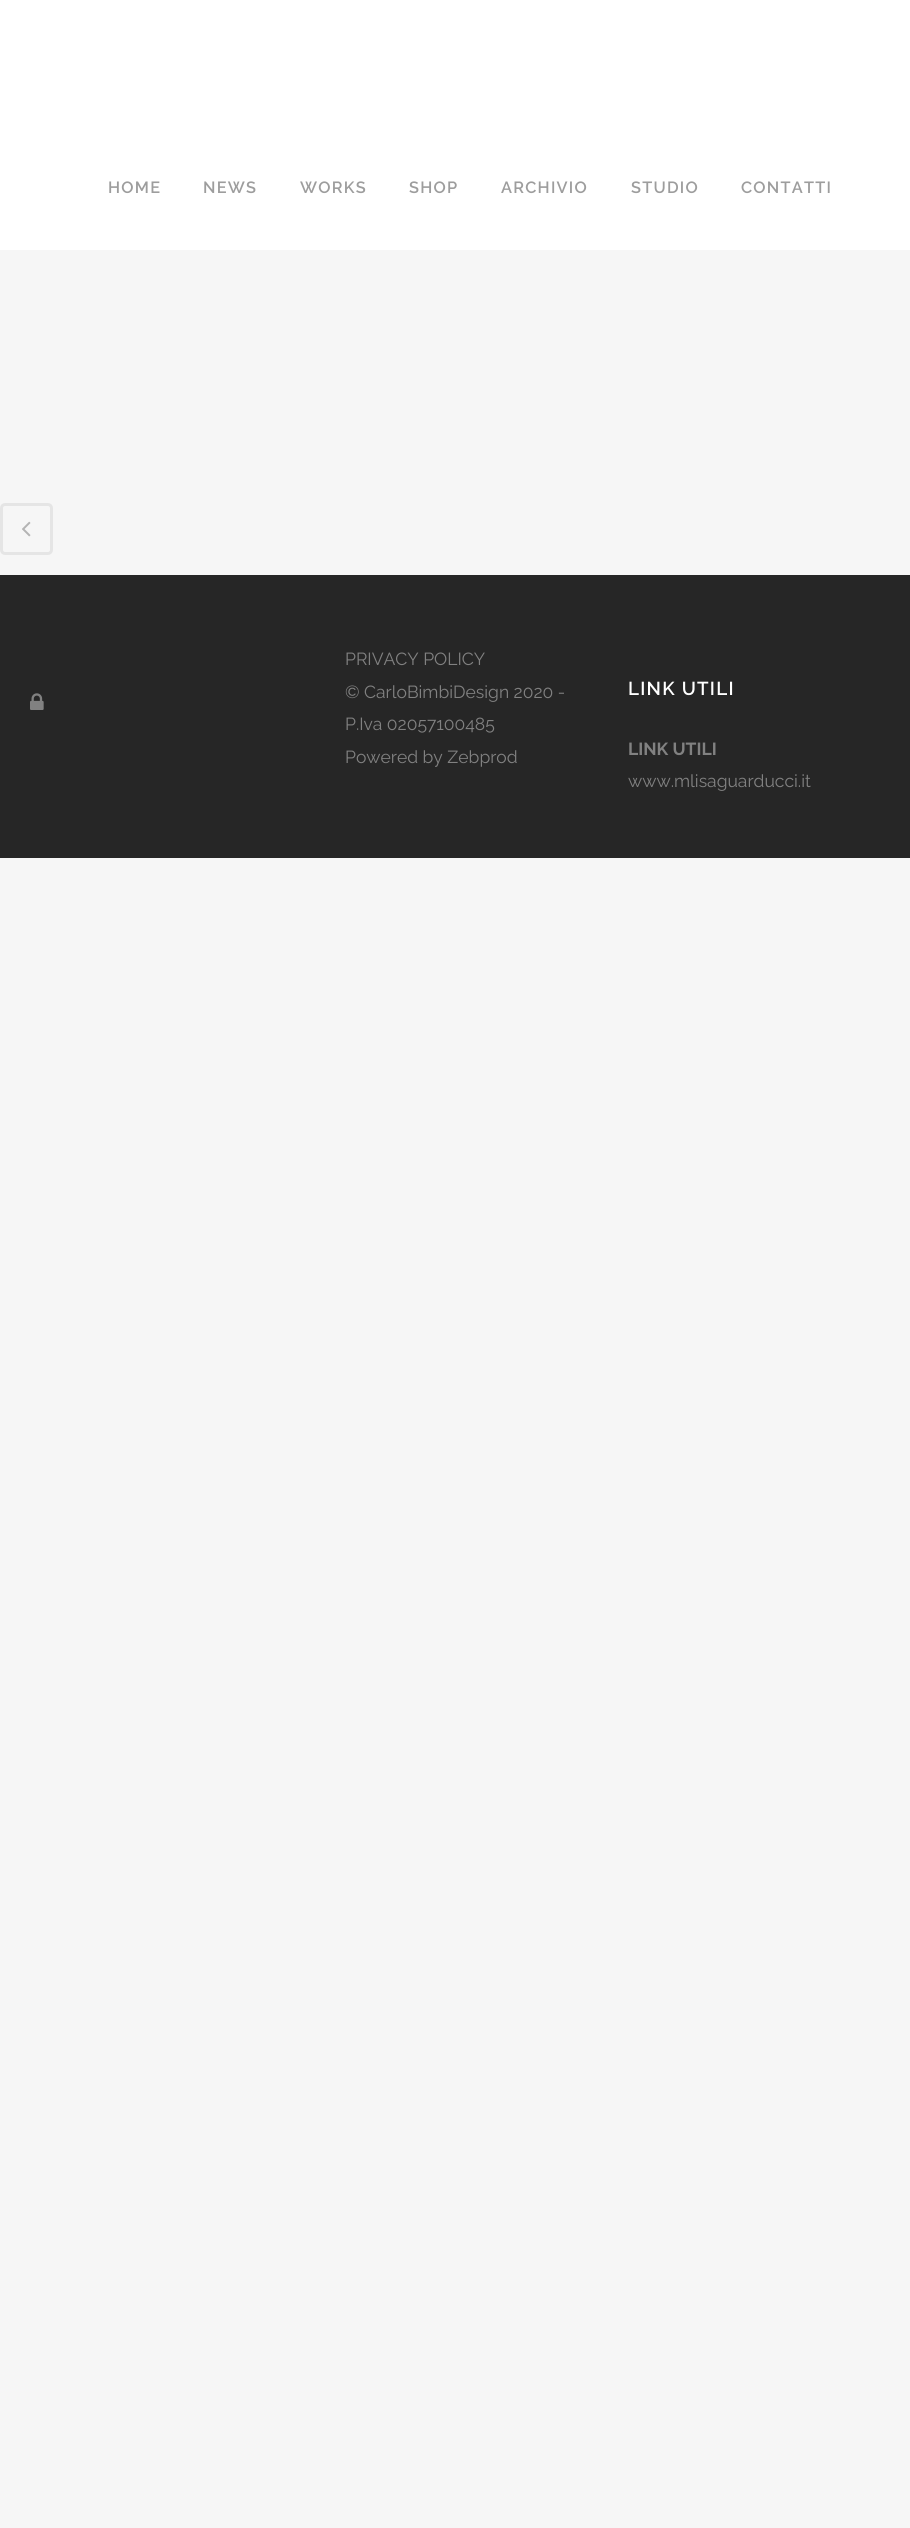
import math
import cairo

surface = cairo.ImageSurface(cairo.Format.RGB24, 910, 2528)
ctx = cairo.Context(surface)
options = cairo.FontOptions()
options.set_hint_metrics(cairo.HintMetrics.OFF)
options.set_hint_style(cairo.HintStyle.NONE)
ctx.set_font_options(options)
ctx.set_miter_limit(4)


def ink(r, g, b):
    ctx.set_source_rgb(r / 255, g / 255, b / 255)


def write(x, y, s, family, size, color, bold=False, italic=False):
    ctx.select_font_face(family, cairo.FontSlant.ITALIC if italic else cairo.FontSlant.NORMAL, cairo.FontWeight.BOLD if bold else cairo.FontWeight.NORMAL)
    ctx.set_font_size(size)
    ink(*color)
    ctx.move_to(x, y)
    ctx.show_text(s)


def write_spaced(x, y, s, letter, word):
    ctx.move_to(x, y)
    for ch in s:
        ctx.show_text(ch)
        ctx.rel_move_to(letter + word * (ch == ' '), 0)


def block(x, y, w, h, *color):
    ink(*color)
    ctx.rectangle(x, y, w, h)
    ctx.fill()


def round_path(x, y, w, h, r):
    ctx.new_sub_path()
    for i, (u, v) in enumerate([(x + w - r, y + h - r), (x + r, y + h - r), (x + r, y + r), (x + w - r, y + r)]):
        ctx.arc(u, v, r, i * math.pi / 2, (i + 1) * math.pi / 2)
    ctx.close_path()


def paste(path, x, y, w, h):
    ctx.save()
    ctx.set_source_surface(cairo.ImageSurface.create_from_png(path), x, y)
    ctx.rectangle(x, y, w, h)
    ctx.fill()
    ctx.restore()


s1 = dict(family="Raleway", size=17.5, color=(129, 129, 129))
s2 = dict(family="Raleway", size=17.5, color=(129, 129, 129), bold=True)

ink(246, 246, 246)
ctx.paint()
block(0, 0, 910, 250, 255, 255, 255)
ctx.select_font_face("Raleway SemiBold")
ctx.set_font_size(16.25)
ink(157, 157, 157)
write_spaced(108, 193, "HOME", 1.25, 0)
write_spaced(203, 193, "NEWS", 1.25, 0)
write_spaced(300, 193, "WORKS", 1.25, 0)
write_spaced(409, 193, "SHOP", 1.25, 0)
write_spaced(501, 193, "ARCHIVIO", 1.25, 0)
write_spaced(631, 193, "STUDIO", 1.25, 0)
write_spaced(741, 193, "CONTATTI", 1.25, 0)
round_path(1.5, 504.5, 50, 49, 3.5)
ink(229, 229, 229)
ctx.set_line_width(3)
ctx.stroke()
paste("pic1.png", 22, 521, 9, 16)
block(0, 575, 910, 283, 38, 38, 38)
paste("pic2.png", 30, 693, 14, 17)
write(345, 665, "PRIVACY POLICY", **s1)
write(345, 698, "© CarloBimbiDesign 2020 -", **s1)
write(345, 730, "P.Iva 02057100485", **s1)
write(345, 763, "Powered by Zebprod", **s1)
ctx.select_font_face("Raleway SemiBold")
ctx.set_font_size(18.75)
ink(255, 255, 255)
write_spaced(628, 695, "LINK UTILI", 1.25, 0)
write(628, 755, "LINK UTILI", **s2)
write(628, 787, "www.mlisaguarducci.it", **s1)
surface.write_to_png("screenshot.png")
